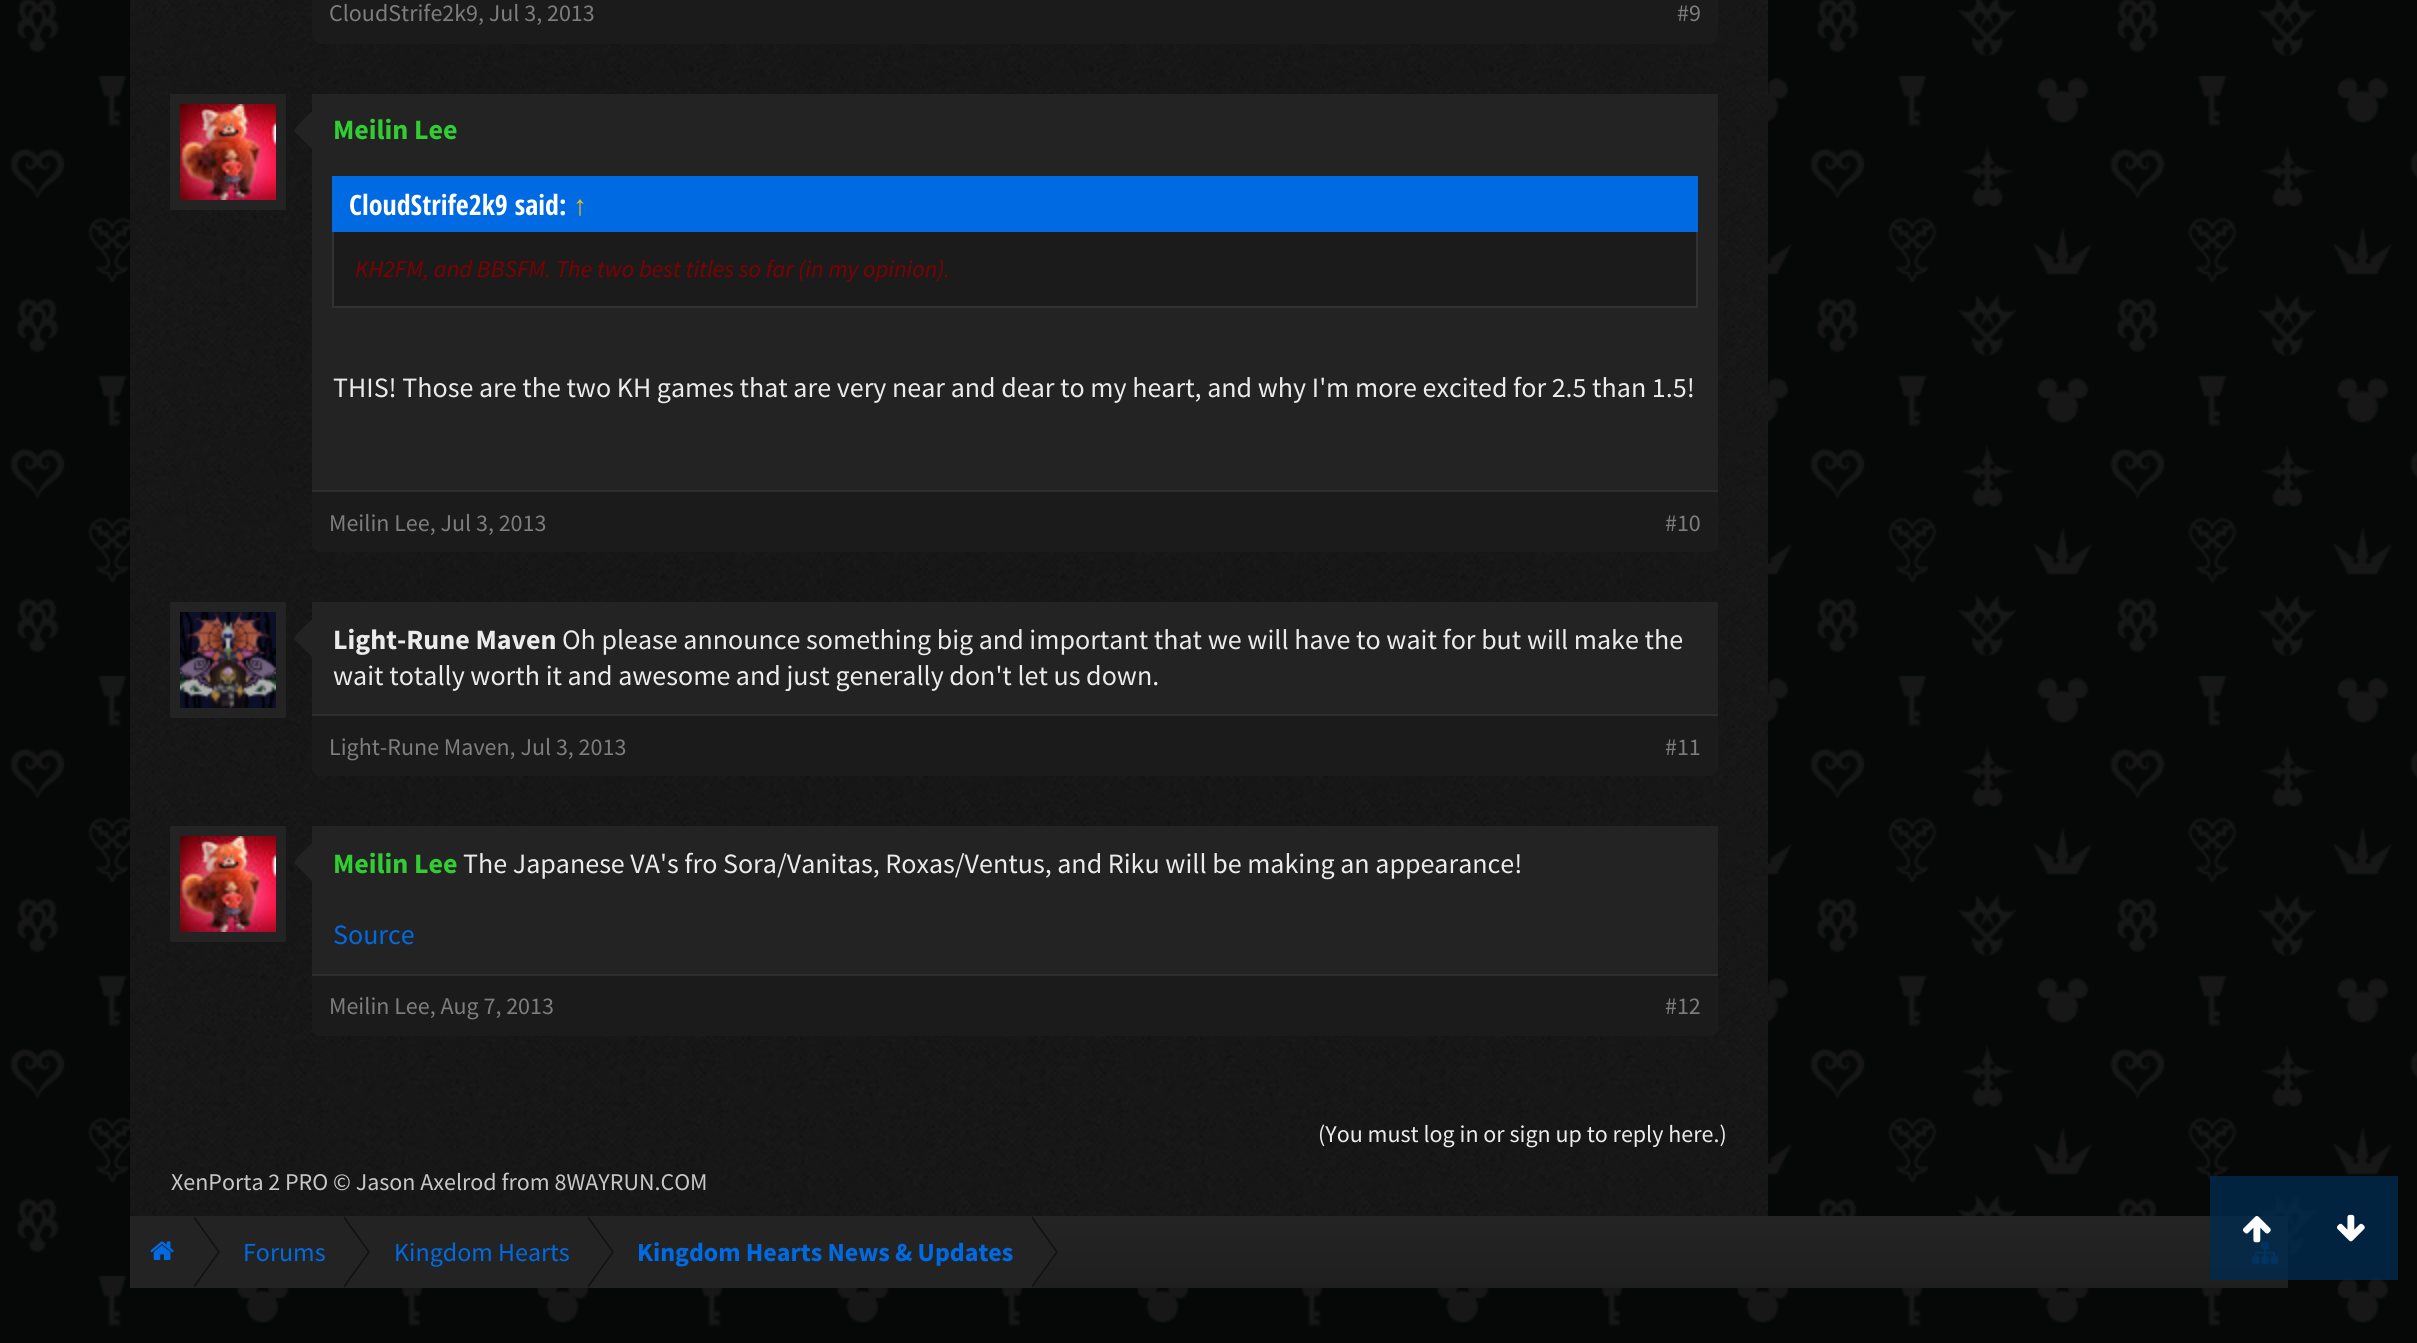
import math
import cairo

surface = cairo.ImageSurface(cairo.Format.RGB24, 2417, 1343)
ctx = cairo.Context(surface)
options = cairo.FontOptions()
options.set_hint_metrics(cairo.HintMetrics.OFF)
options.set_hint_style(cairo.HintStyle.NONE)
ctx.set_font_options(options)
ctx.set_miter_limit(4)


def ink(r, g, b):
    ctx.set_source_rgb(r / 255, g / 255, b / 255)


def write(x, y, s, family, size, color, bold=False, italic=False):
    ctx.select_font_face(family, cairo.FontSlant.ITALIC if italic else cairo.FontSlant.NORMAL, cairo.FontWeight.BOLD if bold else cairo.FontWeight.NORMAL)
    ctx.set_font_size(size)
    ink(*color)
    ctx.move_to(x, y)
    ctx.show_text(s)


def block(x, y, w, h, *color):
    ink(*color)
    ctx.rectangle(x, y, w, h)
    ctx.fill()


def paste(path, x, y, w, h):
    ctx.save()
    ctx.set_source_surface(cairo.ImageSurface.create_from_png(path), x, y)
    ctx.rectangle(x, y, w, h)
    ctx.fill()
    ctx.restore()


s1 = dict(family="Source Sans Pro", size=24, color=(125, 125, 125))
s2 = dict(family="Source Sans Pro", size=28, color=(50, 205, 50), bold=True)
s3 = dict(family="Open Sans Condensed", size=28, color=(255, 255, 255), bold=True)
s4 = dict(family="Liberation Serif", size=28, color=(237, 193, 8), bold=True)
s5 = dict(family="Source Sans Pro", size=24, color=(128, 0, 0), italic=True)
s6 = dict(family="Source Sans Pro", size=28, color=(235, 235, 235))
s7 = dict(family="Source Sans Pro", size=28, color=(235, 235, 235), bold=True)
s8 = dict(family="Source Sans Pro", size=28, color=(0, 106, 227))
s9 = dict(family="Source Sans Pro", size=24, color=(235, 235, 235))
s10 = dict(family="Source Sans Pro", size=24, color=(200, 200, 200))
s11 = dict(family="Source Sans Pro", size=26, color=(0, 106, 227))
s12 = dict(family="Source Sans Pro", size=26, color=(0, 106, 227), bold=True)

ink(255, 255, 255)
ctx.paint()
paste("pic1.png", 0, 0, 2417, 1343)
paste("pic2.png", 130, 0, 1638, 1216)
ink(27, 27, 27)
ctx.new_path()
ctx.move_to(312, -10)
ctx.line_to(1718, -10)
ctx.line_to(1718, 34)
ctx.curve_to(1718, 39.5, 1713.5, 44, 1708, 44)
ctx.line_to(322, 44)
ctx.curve_to(316.5, 44, 312, 39.5, 312, 34)
ctx.close_path()
ctx.fill()
write(329, 21, "CloudStrife2k9, Jul 3, 2013", **s1)
write(1677, 21, "#9", **s1)
block(170, 94, 116, 116, 35, 35, 35)
paste("pic3.png", 180, 104, 96, 96)
ctx.new_path()
ctx.move_to(312, 94)
ctx.line_to(1718, 94)
ctx.line_to(1718, 542)
ctx.curve_to(1718, 547.5, 1713.5, 552, 1708, 552)
ctx.line_to(322, 552)
ctx.curve_to(316.5, 552, 312, 547.5, 312, 542)
ctx.close_path()
ctx.fill()
ctx.new_path()
ctx.move_to(318, 112)
ctx.line_to(318, 142)
ctx.curve_to(318, 144, 319, 149, 316, 151)
ctx.curve_to(313, 152, 309, 145, 307, 144)
ctx.line_to(295, 132)
ctx.curve_to(293, 130, 297, 127, 298, 125)
ctx.line_to(310, 113)
ctx.curve_to(312, 112, 314, 108, 317, 110)
ctx.close_path()
ctx.fill()
write(333, 139, "Meilin Lee", **s2)
block(332, 176, 1366, 56, 0, 106, 227)
write(349, 215, "CloudStrife2k9 said:", **s3)
write(573, 215, "↑", **s4)
block(334, 232, 1362, 74, 27, 27, 27)
block(1696, 232, 2, 76, 51, 50, 50)
block(332, 306, 1366, 2, 51, 50, 50)
block(332, 232, 2, 76, 51, 50, 50)
write(355, 277, "KH2FM, and BBSFM. The two best titles so far (in my opinion).", **s5)
write(333, 397, "THIS! Those are the two KH games that are very near and dear to my heart, and why I'm more excited for 2.5 than 1.5!", **s6)
ink(27, 27, 27)
ctx.new_path()
ctx.move_to(312, 490)
ctx.line_to(1718, 490)
ctx.line_to(1718, 542)
ctx.curve_to(1718, 547.5, 1713.5, 552, 1708, 552)
ctx.line_to(322, 552)
ctx.curve_to(316.5, 552, 312, 547.5, 312, 542)
ctx.close_path()
ctx.fill()
block(312, 490, 1406, 2, 46, 46, 46)
write(329, 531, "Meilin Lee, Jul 3, 2013", **s1)
write(1665, 531, "#10", **s1)
block(170, 602, 116, 116, 35, 35, 35)
paste("pic4.png", 180, 612, 96, 96)
ctx.new_path()
ctx.move_to(312, 602)
ctx.line_to(1718, 602)
ctx.line_to(1718, 766)
ctx.curve_to(1718, 771.5, 1713.5, 776, 1708, 776)
ctx.line_to(322, 776)
ctx.curve_to(316.5, 776, 312, 771.5, 312, 766)
ctx.close_path()
ctx.fill()
ctx.new_path()
ctx.move_to(318, 620)
ctx.line_to(318, 650)
ctx.curve_to(318, 652, 319, 657, 316, 659)
ctx.curve_to(313, 660, 309, 653, 307, 652)
ctx.line_to(295, 640)
ctx.curve_to(293, 638, 297, 635, 298, 633)
ctx.line_to(310, 621)
ctx.curve_to(312, 620, 314, 616, 317, 618)
ctx.close_path()
ctx.fill()
write(333, 649, "Light-Rune Maven", **s7)
write(562, 649, "Oh please announce something big and important that we will have to wait for but will make the", **s6)
write(333, 685, "wait totally worth it and awesome and just generally don't let us down.", **s6)
ink(27, 27, 27)
ctx.new_path()
ctx.move_to(312, 714)
ctx.line_to(1718, 714)
ctx.line_to(1718, 766)
ctx.curve_to(1718, 771.5, 1713.5, 776, 1708, 776)
ctx.line_to(322, 776)
ctx.curve_to(316.5, 776, 312, 771.5, 312, 766)
ctx.close_path()
ctx.fill()
block(312, 714, 1406, 2, 46, 46, 46)
write(329, 755, "Light-Rune Maven, Jul 3, 2013", **s1)
write(1665, 755, "#11", **s1)
block(170, 826, 116, 116, 35, 35, 35)
paste("pic3.png", 180, 836, 96, 96)
ctx.new_path()
ctx.move_to(312, 826)
ctx.line_to(1718, 826)
ctx.line_to(1718, 1026)
ctx.curve_to(1718, 1031.5, 1713.5, 1036, 1708, 1036)
ctx.line_to(322, 1036)
ctx.curve_to(316.5, 1036, 312, 1031.5, 312, 1026)
ctx.close_path()
ctx.fill()
ctx.new_path()
ctx.move_to(318, 844)
ctx.line_to(318, 874)
ctx.curve_to(318, 876, 319, 881, 316, 883)
ctx.curve_to(313, 884, 309, 877, 307, 876)
ctx.line_to(295, 864)
ctx.curve_to(293, 862, 297, 859, 298, 857)
ctx.line_to(310, 845)
ctx.curve_to(312, 844, 314, 840, 317, 842)
ctx.close_path()
ctx.fill()
write(333, 873, "Meilin Lee", **s2)
write(463, 873, "The Japanese VA's fro Sora/Vanitas, Roxas/Ventus, and Riku will be making an appearance!", **s6)
write(333, 944, "Source", **s8)
ink(27, 27, 27)
ctx.new_path()
ctx.move_to(312, 974)
ctx.line_to(1718, 974)
ctx.line_to(1718, 1026)
ctx.curve_to(1718, 1031.5, 1713.5, 1036, 1708, 1036)
ctx.line_to(322, 1036)
ctx.curve_to(316.5, 1036, 312, 1031.5, 312, 1026)
ctx.close_path()
ctx.fill()
block(312, 974, 1406, 2, 46, 46, 46)
write(329, 1014, "Meilin Lee, Aug 7, 2013", **s1)
write(1665, 1014, "#12", **s1)
write(1318, 1142, "(You must log in or sign up to reply here.)", **s9)
write(171, 1190, "XenPorta 2 PRO © Jason Axelrod from 8WAYRUN.COM", **s10)
gradient = cairo.LinearGradient(1209, 1216, 1209, 1288)
gradient.add_color_stop_rgba(0, 0.141, 0.141, 0.141, 1)
gradient.add_color_stop_rgba(1, 0.122, 0.122, 0.122, 1)
ctx.set_source(gradient)
ctx.rectangle(1034, 1216, 1254, 72)
ctx.fill()
block(130, 1216, 904, 72, 35, 35, 35)
paste("pic5.png", 150, 1241, 24, 19)
ink(17, 17, 17)
ctx.new_path()
ctx.move_to(194, 1288)
ctx.line_to(194, 1216)
ctx.line_to(220, 1252)
ctx.close_path()
ctx.fill()
ink(35, 35, 35)
ctx.new_path()
ctx.move_to(192, 1288)
ctx.line_to(192, 1216)
ctx.line_to(218, 1252)
ctx.close_path()
ctx.fill()
write(243, 1261, "Forums", **s11)
ink(17, 17, 17)
ctx.new_path()
ctx.move_to(344, 1288)
ctx.line_to(344, 1216)
ctx.line_to(370, 1252)
ctx.close_path()
ctx.fill()
ink(35, 35, 35)
ctx.new_path()
ctx.move_to(342, 1288)
ctx.line_to(342, 1216)
ctx.line_to(368, 1252)
ctx.close_path()
ctx.fill()
write(394, 1261, "Kingdom Hearts", **s11)
ink(17, 17, 17)
ctx.new_path()
ctx.move_to(588, 1288)
ctx.line_to(588, 1216)
ctx.line_to(614, 1252)
ctx.close_path()
ctx.fill()
ink(35, 35, 35)
ctx.new_path()
ctx.move_to(586, 1288)
ctx.line_to(586, 1216)
ctx.line_to(612, 1252)
ctx.close_path()
ctx.fill()
write(637, 1261, "Kingdom Hearts News & Updates", **s12)
ink(17, 17, 17)
ctx.new_path()
ctx.move_to(1032, 1288)
ctx.line_to(1032, 1216)
ctx.line_to(1058, 1252)
ctx.close_path()
ctx.fill()
ink(35, 35, 35)
ctx.new_path()
ctx.move_to(1030, 1288)
ctx.line_to(1030, 1216)
ctx.line_to(1056, 1252)
ctx.close_path()
ctx.fill()
paste("pic6.png", 2252, 1241, 26, 23)
ctx.set_source_rgba(0.008, 0.169, 0.306, 0.8)
ctx.rectangle(2210, 1176, 94, 104)
ctx.fill()
paste("pic7.png", 2243, 1216, 28, 27)
ctx.rectangle(2304, 1176, 94, 104)
ctx.fill()
paste("pic8.png", 2337, 1214, 28, 28)
surface.write_to_png("screenshot.png")
